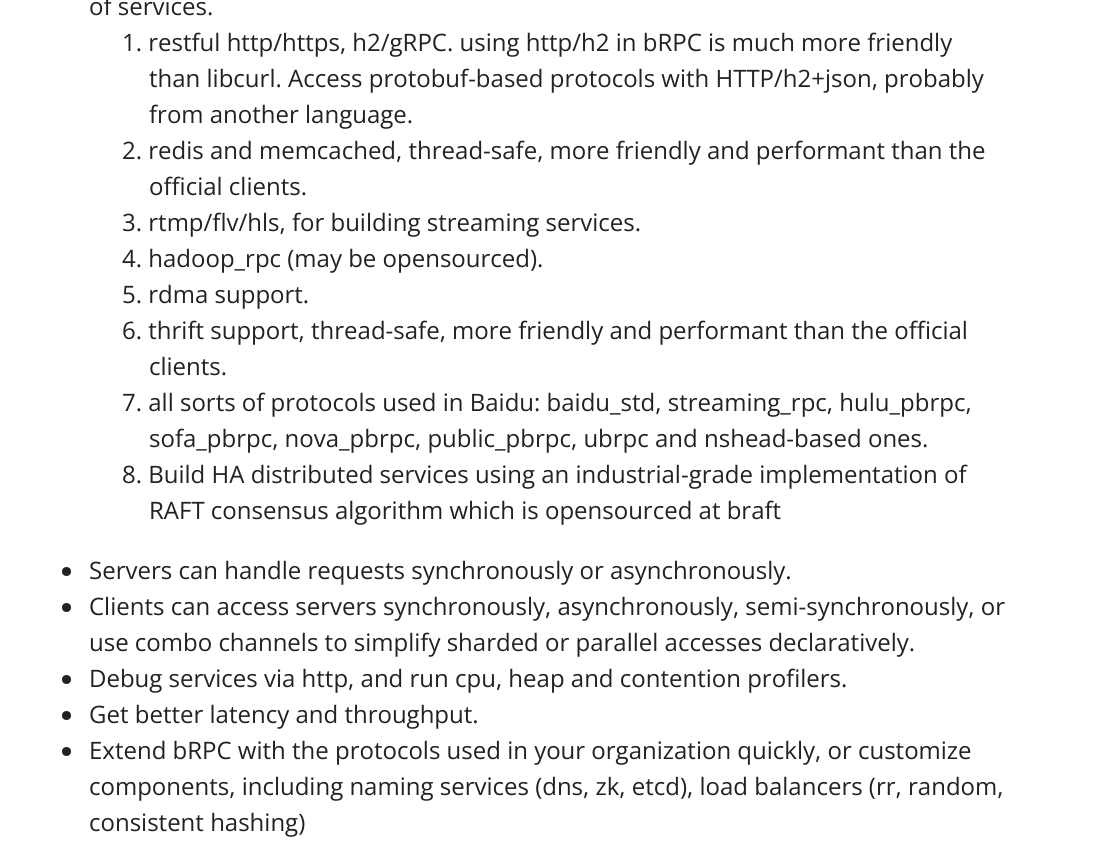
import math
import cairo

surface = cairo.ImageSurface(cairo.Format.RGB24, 1093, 861)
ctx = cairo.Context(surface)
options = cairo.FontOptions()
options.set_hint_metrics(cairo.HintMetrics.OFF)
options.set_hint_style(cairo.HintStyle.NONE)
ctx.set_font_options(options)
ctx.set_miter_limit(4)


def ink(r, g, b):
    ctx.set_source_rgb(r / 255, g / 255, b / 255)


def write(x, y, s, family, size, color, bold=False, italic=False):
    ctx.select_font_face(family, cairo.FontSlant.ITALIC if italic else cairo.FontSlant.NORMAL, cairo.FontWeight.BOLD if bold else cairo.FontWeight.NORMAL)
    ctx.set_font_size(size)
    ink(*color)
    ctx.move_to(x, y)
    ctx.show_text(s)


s1 = dict(family="Open Sans", size=24, color=(34, 34, 34))

ink(255, 255, 255)
ctx.paint()
write(89, 15, "of services.", **s1)
write(122, 51, "1. restful http/https, h2/gRPC. using http/h2 in bRPC is much more friendly", **s1)
write(149, 87, "than libcurl. Access protobuf-based protocols with HTTP/h2+json, probably", **s1)
write(149, 123, "from another language.", **s1)
write(122, 159, "2. redis and memcached, thread-safe, more friendly and performant than the", **s1)
write(149, 195, "official clients.", **s1)
write(122, 231, "3. rtmp/flv/hls, for building streaming services.", **s1)
write(122, 267, "4. hadoop_rpc (may be opensourced).", **s1)
write(122, 303, "5. rdma support.", **s1)
write(122, 339, "6. thrift support, thread-safe, more friendly and performant than the official", **s1)
write(149, 375, "clients.", **s1)
write(122, 411, "7. all sorts of protocols used in Baidu: baidu_std, streaming_rpc, hulu_pbrpc,", **s1)
write(149, 447, "sofa_pbrpc, nova_pbrpc, public_pbrpc, ubrpc and nshead-based ones.", **s1)
write(122, 483, "8. Build HA distributed services using an industrial-grade implementation of", **s1)
write(149, 519, "RAFT consensus algorithm which is opensourced at braft", **s1)
ctx.new_path()
ctx.arc(66.5, 571.5, 4.5, 0, 2 * math.pi)
ctx.fill()
write(89, 579, "Servers can handle requests synchronously or asynchronously.", **s1)
ctx.new_path()
ctx.arc(66.5, 607.5, 4.5, 0, 2 * math.pi)
ctx.fill()
write(89, 615, "Clients can access servers synchronously, asynchronously, semi-synchronously, or", **s1)
write(89, 651, "use combo channels to simplify sharded or parallel accesses declaratively.", **s1)
ctx.new_path()
ctx.arc(66.5, 679.5, 4.5, 0, 2 * math.pi)
ctx.fill()
write(89, 687, "Debug services via http, and run cpu, heap and contention profilers.", **s1)
ctx.new_path()
ctx.arc(66.5, 715.5, 4.5, 0, 2 * math.pi)
ctx.fill()
write(89, 723, "Get better latency and throughput.", **s1)
ctx.new_path()
ctx.arc(66.5, 751.5, 4.5, 0, 2 * math.pi)
ctx.fill()
write(89, 759, "Extend bRPC with the protocols used in your organization quickly, or customize", **s1)
write(89, 795, "components, including naming services (dns, zk, etcd), load balancers (rr, random,", **s1)
write(89, 831, "consistent hashing)", **s1)
surface.write_to_png("screenshot.png")
